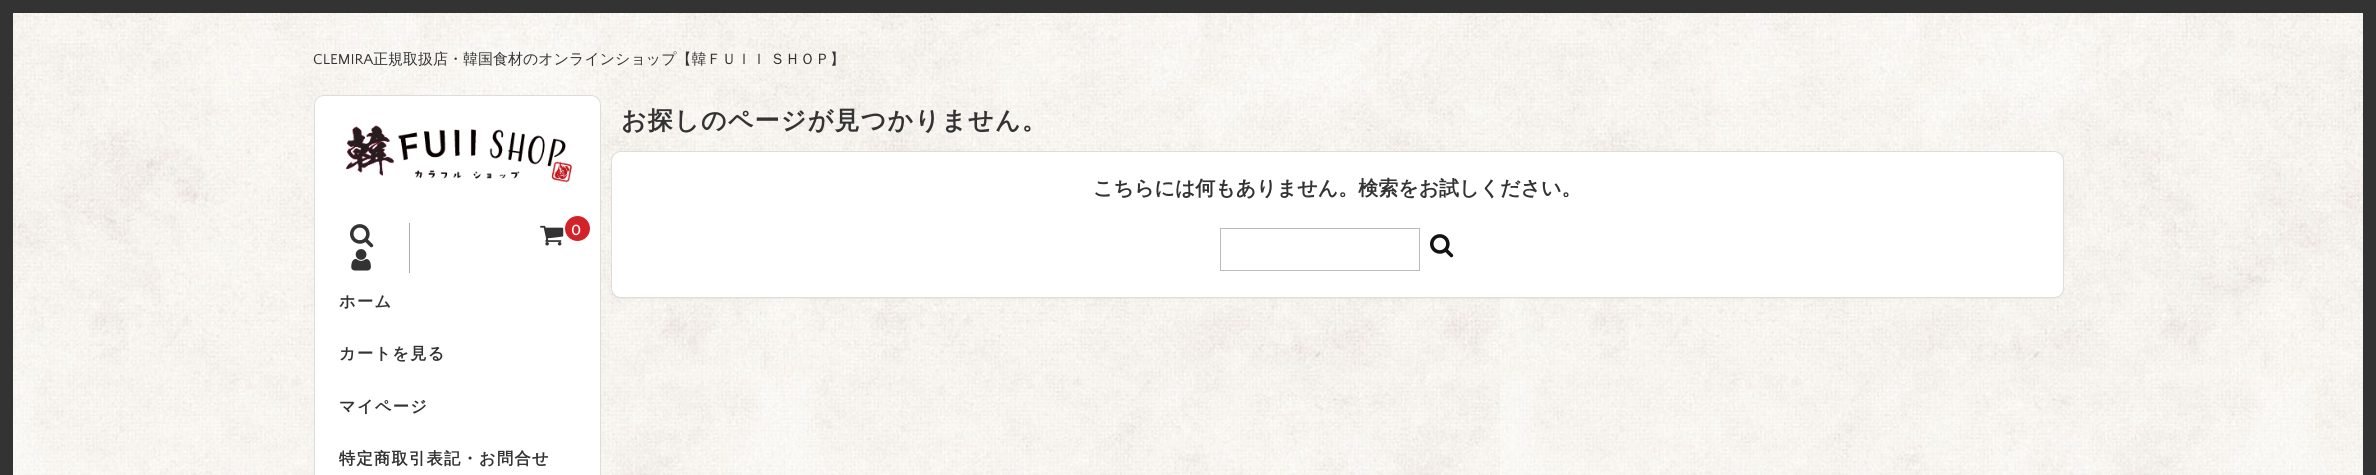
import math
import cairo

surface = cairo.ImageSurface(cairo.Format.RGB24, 2376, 475)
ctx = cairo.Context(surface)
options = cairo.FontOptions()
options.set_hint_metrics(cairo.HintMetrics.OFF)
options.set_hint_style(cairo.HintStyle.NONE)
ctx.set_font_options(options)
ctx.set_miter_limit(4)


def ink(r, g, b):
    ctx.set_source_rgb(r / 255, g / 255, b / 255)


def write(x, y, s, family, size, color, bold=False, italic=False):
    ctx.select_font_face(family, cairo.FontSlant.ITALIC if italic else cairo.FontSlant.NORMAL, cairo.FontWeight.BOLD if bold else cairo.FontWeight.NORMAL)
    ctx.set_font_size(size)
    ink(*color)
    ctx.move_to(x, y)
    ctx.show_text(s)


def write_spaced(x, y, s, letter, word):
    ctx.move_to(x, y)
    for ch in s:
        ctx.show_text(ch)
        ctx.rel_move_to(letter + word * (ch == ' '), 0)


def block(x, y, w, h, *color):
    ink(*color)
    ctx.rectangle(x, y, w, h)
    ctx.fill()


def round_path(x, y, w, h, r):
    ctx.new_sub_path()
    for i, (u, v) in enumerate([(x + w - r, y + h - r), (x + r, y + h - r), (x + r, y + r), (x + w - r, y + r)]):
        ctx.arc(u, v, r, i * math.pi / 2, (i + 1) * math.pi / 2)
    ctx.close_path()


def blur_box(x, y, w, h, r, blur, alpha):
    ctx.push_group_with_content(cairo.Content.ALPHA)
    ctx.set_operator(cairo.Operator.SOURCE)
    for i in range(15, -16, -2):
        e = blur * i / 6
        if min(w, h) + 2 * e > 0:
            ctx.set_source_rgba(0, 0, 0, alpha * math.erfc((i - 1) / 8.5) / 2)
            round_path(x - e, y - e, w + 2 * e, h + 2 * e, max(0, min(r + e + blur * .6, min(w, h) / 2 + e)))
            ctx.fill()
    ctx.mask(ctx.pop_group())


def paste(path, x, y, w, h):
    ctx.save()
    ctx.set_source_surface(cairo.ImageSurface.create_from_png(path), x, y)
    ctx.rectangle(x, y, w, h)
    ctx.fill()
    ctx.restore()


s1 = dict(family="Quattrocento Sans", size=15, color=(51, 51, 51))
s2 = dict(family="WenQuanYi Zen Hei", size=20, color=(51, 51, 51), bold=True)

ink(255, 255, 255)
ctx.paint()
paste("pic1.png", 13, 13, 2350, 462)
ctx.rectangle(6.5, 6.5, 2363, 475)
ink(51, 51, 51)
ctx.set_line_width(13)
ctx.stroke()
write(313, 64, "CLEMIRA", **s1)
ctx.select_font_face("WenQuanYi Zen Hei Medium")
write_spaced(373, 64, "正規取扱店・韓国食材のオンラインショップ【韓ＦＵｌｌ ＳＨＯＰ】", 0, -1)
ctx.select_font_face("WenQuanYi Zen Hei", cairo.FontSlant.NORMAL, cairo.FontWeight.BOLD)
ctx.set_font_size(25)
write_spaced(621, 129, "お探しのページが見つかりません。", 1.25, 0)
ink(0, 0, 0)
blur_box(611, 153, 1453, 146, 10, 1, 0.05)
ink(255, 255, 255)
round_path(611.5, 151.5, 1452, 146, 9.5)
ctx.fill_preserve()
ink(221, 221, 221)
ctx.set_line_width(1)
ctx.stroke()
write(1093, 195, "こちらには何もありません。検索をお試しください。", **s2)
ctx.rectangle(1220.5, 228.5, 199, 42)
ink(187, 187, 187)
ctx.stroke()
paste("pic2.png", 1430, 234, 24, 24)
ink(255, 255, 255)
round_path(314.5, 95.5, 286, 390, 9.5)
ctx.fill_preserve()
ink(221, 221, 221)
ctx.stroke()
paste("pic3.png", 346, 125, 226, 58)
paste("pic4.png", 540, 225, 24, 21)
ink(211, 34, 42)
ctx.arc(577.5, 228.5, 12.5, 0, 2 * math.pi)
ctx.fill()
ctx.select_font_face("Quattrocento Sans", cairo.FontSlant.NORMAL, cairo.FontWeight.BOLD)
ctx.set_font_size(15)
ink(255, 255, 255)
write_spaced(571, 235, "0", 1.25, 0)
block(409, 223, 1, 50, 170, 170, 170)
paste("pic5.png", 350, 224, 24, 24)
paste("pic6.png", 351, 249, 20, 22)
ctx.select_font_face("WenQuanYi Zen Hei", cairo.FontSlant.NORMAL, cairo.FontWeight.BOLD)
ctx.set_font_size(16.25)
ink(51, 51, 51)
write_spaced(339, 307, "ホーム", 1.25, 0)
write_spaced(339, 359, "カートを見る", 1.25, 0)
write_spaced(339, 412, "マイページ", 1.25, 0)
write_spaced(339, 464, "特定商取引表記・お問合せ", 1.25, 0)
surface.write_to_png("screenshot.png")
